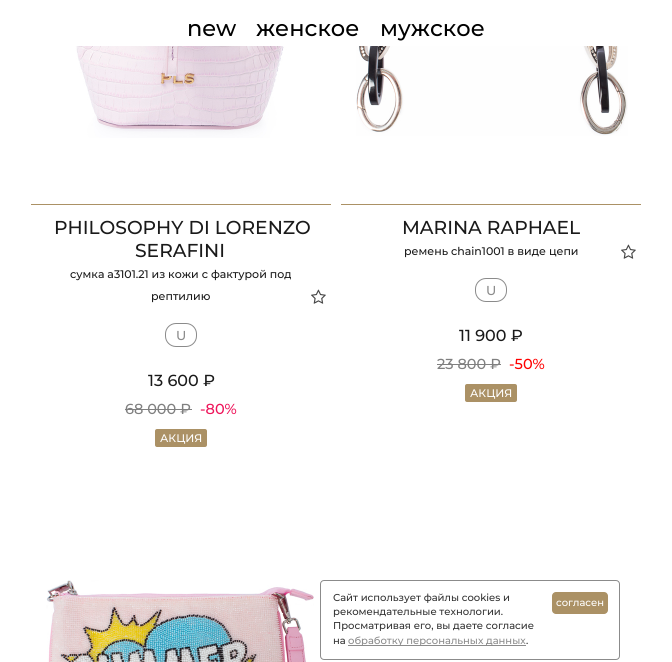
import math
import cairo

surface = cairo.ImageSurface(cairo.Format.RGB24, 672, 662)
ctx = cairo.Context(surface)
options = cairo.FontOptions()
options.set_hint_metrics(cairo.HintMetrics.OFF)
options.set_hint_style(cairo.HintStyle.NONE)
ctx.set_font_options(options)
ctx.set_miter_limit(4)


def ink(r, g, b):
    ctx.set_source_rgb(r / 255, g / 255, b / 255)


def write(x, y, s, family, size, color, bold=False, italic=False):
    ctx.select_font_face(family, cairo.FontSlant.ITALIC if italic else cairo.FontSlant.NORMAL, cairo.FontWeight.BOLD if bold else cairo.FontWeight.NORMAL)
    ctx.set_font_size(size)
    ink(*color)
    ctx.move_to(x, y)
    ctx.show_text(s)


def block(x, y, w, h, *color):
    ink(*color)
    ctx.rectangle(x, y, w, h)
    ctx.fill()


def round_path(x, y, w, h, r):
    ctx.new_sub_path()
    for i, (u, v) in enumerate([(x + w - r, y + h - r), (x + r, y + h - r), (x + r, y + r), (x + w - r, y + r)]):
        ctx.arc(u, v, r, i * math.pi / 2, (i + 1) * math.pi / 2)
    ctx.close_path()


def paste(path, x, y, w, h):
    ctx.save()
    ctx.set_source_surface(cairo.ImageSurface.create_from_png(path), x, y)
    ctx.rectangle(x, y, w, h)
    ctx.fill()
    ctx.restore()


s1 = dict(family="Montserrat Medium", size=22.5, color=(0, 0, 0))
s2 = dict(family="Montserrat Medium", size=18.7, color=(26, 26, 26))
s3 = dict(family="Montserrat Medium", size=11, color=(26, 26, 26))
s4 = dict(family="Montserrat Medium", size=13, color=(139, 139, 139))
s5 = dict(family="Montserrat Medium", size=16, color=(26, 26, 26))
s6 = dict(family="Montserrat Medium", size=14.5, color=(128, 128, 128))
s7 = dict(family="Montserrat Medium", size=14.5, color=(238, 20, 90))
s8 = dict(family="Montserrat Medium", size=11, color=(255, 255, 255))
s9 = dict(family="Montserrat Medium", size=14.5, color=(255, 0, 0))
s10 = dict(family="Montserrat Medium", size=10, color=(51, 51, 51))
s11 = dict(family="Montserrat Medium", size=10, color=(139, 139, 139))
s12 = dict(family="Montserrat Medium", size=10, color=(255, 255, 255))

ink(255, 255, 255)
ctx.paint()
write(187, 36, "new", **s1)
write(256, 36, "женское", **s1)
write(380, 36, "мужское", **s1)
paste("pic1.png", 71, 46, 218, 92)
block(31, 204, 300, 1, 171, 145, 101)
write(54, 234, "PHILOSOPHY DI LORENZO", **s2)
write(135, 257, "SERAFINI", **s2)
write(70, 278, "сумка a3101.21 из кожи с фактурой под", **s3)
write(151, 300, "рептилию", **s3)
paste("pic2.png", 311, 289, 15, 15)
round_path(165.5, 323.5, 31, 23, 10.5)
ink(139, 139, 139)
ctx.set_line_width(1)
ctx.stroke()
write(176, 340, "U", **s4)
write(148, 386, "13 600 ₽", **s5)
write(125, 414, "68 000 ₽", **s6)
block(125, 409, 67, 1, 128, 128, 128)
write(200, 414, "-80%", **s7)
ink(171, 145, 101)
round_path(155, 429, 52, 18, 2)
ctx.fill()
write(160, 442, "АКЦИЯ", **s8)
paste("pic3.png", 356, 46, 272, 90)
block(341, 204, 300, 1, 171, 145, 101)
write(402, 234, "MARINA RAPHAEL", **s2)
write(404, 255, "ремень chain1001 в виде цепи", **s3)
paste("pic2.png", 621, 244, 15, 15)
round_path(475.5, 278.5, 31, 23, 10.5)
ink(139, 139, 139)
ctx.stroke()
write(486, 295, "U", **s4)
write(459, 341, "11 900 ₽", **s5)
write(437, 369, "23 800 ₽", **s6)
block(437, 364, 64, 1, 128, 128, 128)
write(509, 369, "-50%", **s9)
ink(171, 145, 101)
round_path(465, 384, 52, 18, 2)
ctx.fill()
write(470, 397, "АКЦИЯ", **s8)
paste("pic4.png", 46, 580, 268, 82)
round_path(320.5, 580.5, 299, 79, 3.5)
ink(139, 139, 139)
ctx.stroke()
write(333, 601, "Сайт использует файлы cookies и", **s10)
write(333, 615, "рекомендательные технологии.", **s10)
write(333, 629, "Просматривая его, вы даете согласие", **s10)
write(333, 644, "на", **s10)
block(348, 645, 178, 1, 139, 139, 139)
write(348, 644, "обработку персональных данных", **s11)
write(526, 644, ".", **s10)
ink(171, 145, 101)
round_path(552, 592, 56, 22, 4)
ctx.fill()
write(556, 606, "согласен", **s12)
surface.write_to_png("screenshot.png")
